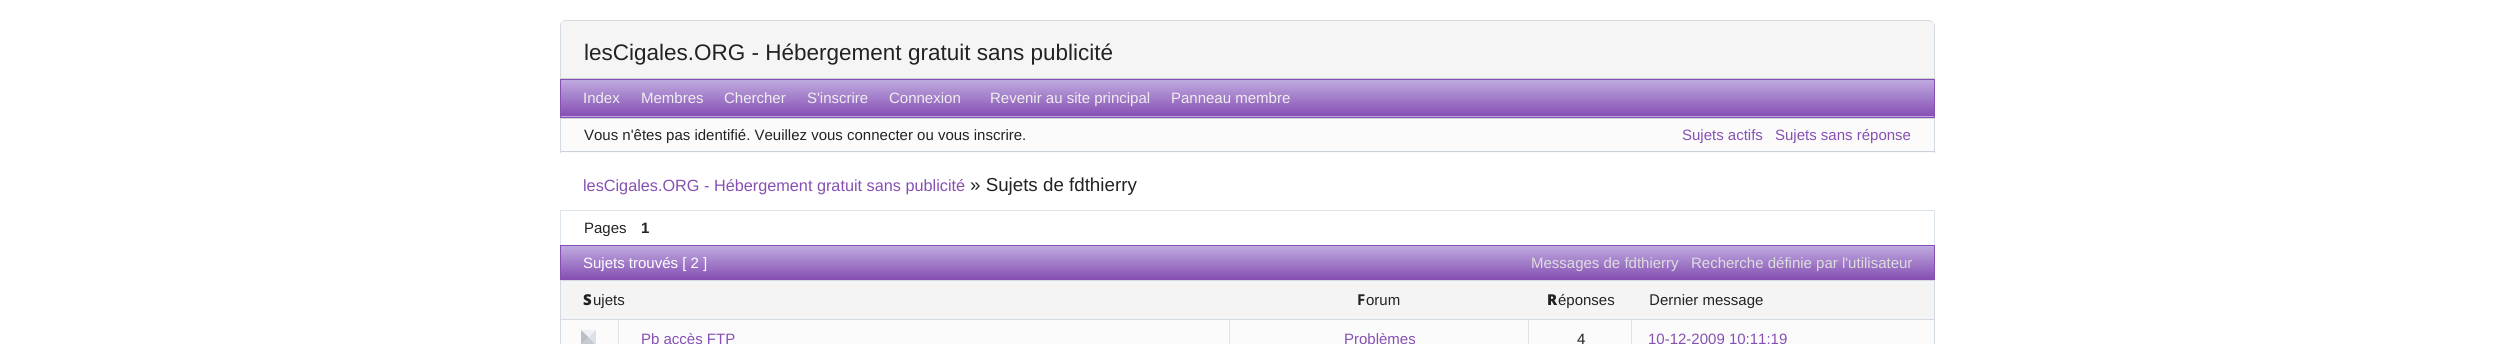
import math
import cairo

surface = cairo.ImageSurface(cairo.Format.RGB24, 2495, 344)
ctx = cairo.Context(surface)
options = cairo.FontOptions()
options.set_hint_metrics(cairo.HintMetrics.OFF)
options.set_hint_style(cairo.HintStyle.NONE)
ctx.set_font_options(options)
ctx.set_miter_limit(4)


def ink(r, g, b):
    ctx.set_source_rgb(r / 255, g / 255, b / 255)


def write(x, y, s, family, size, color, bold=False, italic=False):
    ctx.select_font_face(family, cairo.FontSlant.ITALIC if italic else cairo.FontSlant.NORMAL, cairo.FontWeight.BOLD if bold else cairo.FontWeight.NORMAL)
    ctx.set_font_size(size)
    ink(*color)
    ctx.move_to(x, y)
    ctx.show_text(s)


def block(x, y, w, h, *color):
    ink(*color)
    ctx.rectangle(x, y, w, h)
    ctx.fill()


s1 = dict(family="Liberation Sans", size=22.5, color=(34, 34, 34))
s2 = dict(family="Liberation Sans", size=15, color=(238, 238, 238))
s3 = dict(family="Liberation Sans", size=15, color=(34, 34, 34))
s4 = dict(family="Liberation Sans", size=15, color=(134, 80, 179))
s5 = dict(family="Liberation Sans", size=16.25, color=(134, 80, 179))
s6 = dict(family="Liberation Sans", size=18.75, color=(34, 34, 34))
s7 = dict(family="Liberation Sans", size=15, color=(34, 34, 34), bold=True)
s8 = dict(family="Liberation Sans", size=15, color=(255, 255, 255))
s9 = dict(family="Liberation Sans", size=15, color=(221, 221, 221))
s10 = dict(family="Noto Sans Black", size=15, color=(34, 34, 34))
s11 = dict(family="Noto Sans", size=15, color=(34, 34, 34), bold=True)
s12 = dict(family="Noto Sans", size=15, color=(34, 34, 34))

ink(255, 255, 255)
ctx.paint()
ink(245, 245, 245)
ctx.new_path()
ctx.move_to(566, 20)
ctx.line_to(1929, 20)
ctx.curve_to(1932.5, 20, 1935, 22.5, 1935, 26)
ctx.line_to(1935, 79)
ctx.line_to(560, 79)
ctx.line_to(560, 26)
ctx.curve_to(560, 22.5, 562.5, 20, 566, 20)
ctx.close_path()
ctx.fill()
ink(211, 218, 225)
ctx.new_path()
ctx.move_to(566, 20)
ctx.curve_to(564, 20, 563, 21, 562, 22)
ctx.curve_to(563, 22, 564, 21, 566, 21)
ctx.line_to(1929, 21)
ctx.curve_to(1930, 21, 1932, 22, 1933, 22)
ctx.curve_to(1932, 21, 1930, 20, 1929, 20)
ctx.close_path()
ctx.fill()
ctx.new_path()
ctx.move_to(1935, 79)
ctx.line_to(1935, 26)
ctx.curve_to(1935, 24, 1934, 23, 1933, 22)
ctx.curve_to(1934, 23, 1934, 24, 1934, 26)
ctx.line_to(1934, 78)
ctx.close_path()
ctx.fill()
ink(203, 209, 216)
ctx.new_path()
ctx.move_to(1935, 79)
ctx.line_to(560, 79)
ctx.line_to(561, 78)
ctx.line_to(1934, 78)
ctx.close_path()
ctx.fill()
ink(211, 218, 225)
ctx.new_path()
ctx.move_to(560, 79)
ctx.line_to(561, 78)
ctx.line_to(561, 26)
ctx.curve_to(561, 24, 562, 23, 562, 22)
ctx.curve_to(561, 23, 560, 24, 560, 26)
ctx.close_path()
ctx.fill()
write(584, 60, "lesCigales.ORG - Hébergement gratuit sans publicité", **s1)
gradient = cairo.LinearGradient(1248, 116, 1248, 80)
gradient.add_color_stop_rgba(0, 0.525, 0.314, 0.702, 1)
gradient.add_color_stop_rgba(1, 0.749, 0.667, 0.878, 1)
ctx.set_source(gradient)
ctx.rectangle(561, 80, 1373, 36)
ctx.fill()
gradient = cairo.LinearGradient(1248, 153, 1248, 116)
gradient.add_color_stop_rgba(0, 0.525, 0.314, 0.702, 1)
gradient.add_color_stop_rgba(1, 0.749, 0.667, 0.878, 1)
ctx.set_source(gradient)
ctx.rectangle(560, 116, 1375, 1)
ctx.fill()
ctx.rectangle(560.5, 79.5, 1374, 38)
ink(134, 80, 179)
ctx.set_line_width(1)
ctx.stroke()
write(583, 103, "Index", **s2)
write(641, 103, "Membres", **s2)
write(724, 103, "Chercher", **s2)
write(807, 103, "S'inscrire", **s2)
write(889, 103, "Connexion", **s2)
write(990, 103, "Revenir au site principal", **s2)
write(1171, 103, "Panneau membre", **s2)
block(561, 119, 1373, 34, 251, 251, 251)
block(560, 118, 1375, 1, 211, 218, 225)
block(1934, 118, 1, 35, 211, 218, 225)
block(560, 151, 1375, 1, 203, 209, 216)
block(560, 118, 1, 35, 211, 218, 225)
write(584, 140, "Vous n'êtes pas identifié. Veuillez vous connecter ou vous inscrire.", **s3)
write(1682, 140, "Sujets actifs", **s4)
write(1775, 140, "Sujets sans réponse", **s4)
write(583, 191, "lesCigales.ORG - Hébergement gratuit sans publicité", **s5)
write(970, 191, "» Sujets de fdthierry", **s6)
block(560, 210, 1375, 1, 221, 228, 235)
block(1934, 210, 1, 35, 221, 228, 235)
block(560, 210, 1, 35, 221, 228, 235)
write(584, 233, "Pages", **s3)
write(641, 233, "1", **s7)
gradient = cairo.LinearGradient(1248, 279, 1248, 246)
gradient.add_color_stop_rgba(0, 0.525, 0.314, 0.702, 1)
gradient.add_color_stop_rgba(1, 0.749, 0.667, 0.878, 1)
ctx.set_source(gradient)
ctx.rectangle(561, 246, 1373, 33)
ctx.fill()
ctx.rectangle(560.5, 245.5, 1374, 34)
ink(134, 80, 179)
ctx.stroke()
write(583, 268, "Sujets trouvés [ 2 ]", **s8)
write(1531, 268, "Messages de fdthierry", **s9)
write(1691, 268, "Recherche définie par l'utilisateur", **s9)
block(561, 281, 1373, 38, 244, 244, 244)
block(560, 280, 1375, 1, 211, 218, 225)
block(1934, 280, 1, 39, 211, 218, 225)
block(560, 280, 1, 39, 211, 218, 225)
write(583, 305, "S", **s10)
write(593, 305, "ujets", **s3)
write(1357, 305, "F", **s11)
write(1366, 305, "orum", **s3)
write(1547, 305, "R", **s10)
write(1558, 305, "éponses", **s3)
write(1649, 305, "D", **s12)
write(1660, 305, "ernier message", **s3)
block(561, 320, 1373, 24, 251, 251, 251)
block(560, 319, 1375, 1, 211, 218, 225)
block(1934, 319, 1, 25, 211, 218, 225)
block(560, 319, 1, 25, 211, 218, 225)
ink(237, 241, 245)
ctx.new_path()
ctx.move_to(581, 330)
ctx.line_to(596, 330)
ctx.line_to(589, 337.5)
ctx.close_path()
ctx.fill()
ink(221, 224, 228)
ctx.new_path()
ctx.move_to(596, 330)
ctx.line_to(596, 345)
ctx.line_to(589, 337.5)
ctx.close_path()
ctx.fill()
ink(198, 203, 211)
ctx.new_path()
ctx.move_to(596, 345)
ctx.line_to(581, 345)
ctx.line_to(589, 337.5)
ctx.close_path()
ctx.fill()
ink(186, 191, 198)
ctx.new_path()
ctx.move_to(581, 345)
ctx.line_to(581, 330)
ctx.line_to(589, 337.5)
ctx.close_path()
ctx.fill()
block(618, 320, 1, 24, 221, 228, 235)
write(641, 344, "Pb accès FTP", **s4)
block(1229, 320, 1, 24, 221, 228, 235)
write(1344, 344, "Problèmes", **s4)
block(1528, 320, 1, 24, 221, 228, 235)
write(1577, 344, "4", **s3)
block(1631, 320, 1, 24, 221, 228, 235)
write(1648, 344, "10-12-2009 10:11:19", **s4)
surface.write_to_png("screenshot.png")
